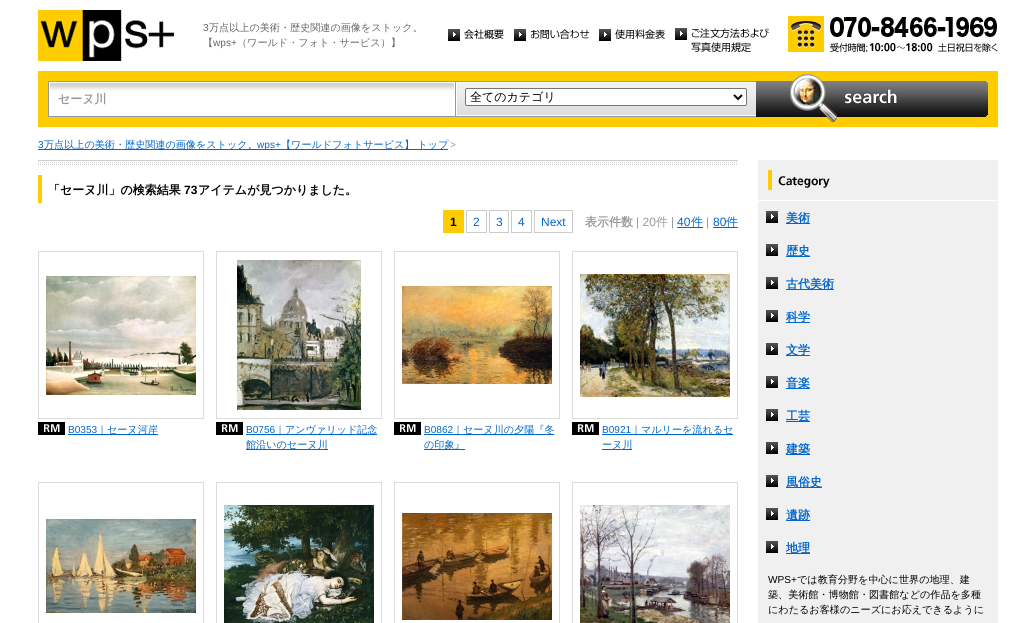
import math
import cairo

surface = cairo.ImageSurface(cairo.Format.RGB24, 1036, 623)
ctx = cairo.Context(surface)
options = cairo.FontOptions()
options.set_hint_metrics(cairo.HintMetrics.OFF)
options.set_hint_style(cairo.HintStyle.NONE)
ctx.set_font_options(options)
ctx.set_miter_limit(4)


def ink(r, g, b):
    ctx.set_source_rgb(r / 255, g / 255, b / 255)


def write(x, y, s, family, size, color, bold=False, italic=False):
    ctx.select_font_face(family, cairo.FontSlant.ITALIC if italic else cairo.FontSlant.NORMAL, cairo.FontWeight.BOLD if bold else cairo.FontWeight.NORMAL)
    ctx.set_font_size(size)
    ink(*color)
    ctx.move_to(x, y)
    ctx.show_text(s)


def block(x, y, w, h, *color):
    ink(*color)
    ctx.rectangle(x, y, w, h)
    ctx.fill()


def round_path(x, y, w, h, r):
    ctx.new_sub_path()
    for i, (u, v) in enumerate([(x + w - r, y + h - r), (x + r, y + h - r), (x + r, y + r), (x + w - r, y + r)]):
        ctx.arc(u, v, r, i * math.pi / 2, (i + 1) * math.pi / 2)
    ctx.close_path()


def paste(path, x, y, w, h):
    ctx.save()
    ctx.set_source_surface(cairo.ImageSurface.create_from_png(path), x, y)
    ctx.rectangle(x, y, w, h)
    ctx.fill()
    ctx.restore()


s1 = dict(family="Liberation Sans", size=10.1, color=(102, 102, 102))
s2 = dict(family="WenQuanYi Zen Hei Medium", size=10.1, color=(102, 102, 102))
s3 = dict(family="WenQuanYi Zen Hei", size=12, color=(153, 153, 153), bold=True)
s4 = dict(family="WenQuanYi Zen Hei Medium", size=12, color=(0, 0, 0))
s5 = dict(family="Liberation Sans", size=10.1, color=(0, 102, 204))
s6 = dict(family="WenQuanYi Zen Hei Medium", size=10.1, color=(0, 102, 204))
s7 = dict(family="Liberation Sans", size=10.1, color=(153, 153, 153))
s8 = dict(family="WenQuanYi Zen Hei", size=12, color=(0, 0, 0), bold=True)
s9 = dict(family="Liberation Sans", size=12, color=(0, 0, 0), bold=True)
s10 = dict(family="Liberation Sans", size=12, color=(0, 102, 204))
s11 = dict(family="Liberation Sans", size=12, color=(153, 153, 153))
s12 = dict(family="WenQuanYi Zen Hei Medium", size=12, color=(153, 153, 153))
s13 = dict(family="WenQuanYi Zen Hei Medium", size=12, color=(0, 102, 204))
s14 = dict(family="WenQuanYi Zen Hei", size=12, color=(0, 102, 204), bold=True)
s15 = dict(family="Liberation Sans", size=10.1, color=(0, 0, 0))
s16 = dict(family="WenQuanYi Zen Hei Medium", size=10.1, color=(0, 0, 0))

ink(255, 255, 255)
ctx.paint()
paste("pic1.png", 38, 10, 136, 51)
write(203, 31, "3", **s1)
write(209, 31, "万点以上の美術・歴史関連の画像をストック。", **s2)
write(203, 46, "【", **s2)
write(213, 46, "wps+", **s1)
write(237, 46, "（ワールド・フォト・サービス）】", **s2)
paste("pic2.png", 448, 29, 56, 12)
paste("pic3.png", 514, 29, 75, 12)
paste("pic4.png", 599, 29, 66, 12)
paste("pic5.png", 675, 28, 94, 24)
paste("pic6.png", 788, 16, 210, 36)
block(38, 71, 960, 56, 255, 204, 0)
paste("pic7.png", 48, 81, 407, 36)
write(58, 103, "セーヌ川", **s3)
paste("pic8.png", 455, 81, 301, 36)
ink(255, 255, 255)
round_path(465.5, 88.5, 281, 17, 1.5)
ctx.fill_preserve()
ink(118, 118, 118)
ctx.set_line_width(1)
ctx.stroke()
ctx.new_path()
ctx.move_to(734, 95)
ctx.line_to(738, 99)
ctx.line_to(742, 95)
ink(0, 0, 0)
ctx.set_line_width(2)
ctx.stroke()
write(470, 101, "全てのカテゴリ", **s4)
paste("pic9.png", 756, 74, 232, 48)
write(38, 148, "3", **s5)
block(38, 149, 410, 1, 0, 102, 204)
write(44, 148, "万点以上の美術・歴史関連の画像をストック。", **s6)
write(257, 148, "wps+", **s5)
write(281, 148, "【ワールドフォトサービス】 トップ", **s6)
write(450, 148, ">", **s7)
paste("pic10.png", 38, 160, 700, 5)
block(38, 175, 4, 28, 255, 204, 0)
write(48, 194, "「セーヌ川」の検索結果", **s8)
write(184, 194, "73", **s9)
write(198, 194, "アイテムが見つかりました。", **s8)
block(443, 210, 21, 23, 255, 204, 0)
write(450, 226, "1", **s9)
ctx.rectangle(466.5, 210.5, 20, 22)
ink(204, 204, 204)
ctx.set_line_width(1)
ctx.stroke()
write(473, 226, "2", **s10)
ctx.rectangle(489.5, 210.5, 19, 22)
ink(204, 204, 204)
ctx.stroke()
write(496, 226, "3", **s10)
ctx.rectangle(511.5, 210.5, 20, 22)
ink(204, 204, 204)
ctx.stroke()
write(518, 226, "4", **s10)
ctx.rectangle(534.5, 210.5, 38, 22)
ink(204, 204, 204)
ctx.stroke()
write(541, 226, "Next", **s10)
write(585, 226, "表示件数", **s3)
write(636, 226, "| 20", **s11)
write(656, 226, "件", **s12)
write(671, 226, "|", **s11)
write(677, 226, "40", **s10)
block(677, 227, 26, 1, 0, 102, 204)
write(691, 226, "件", **s13)
write(706, 226, "|", **s11)
write(713, 226, "80", **s10)
block(713, 227, 25, 1, 0, 102, 204)
write(726, 226, "件", **s13)
block(38, 251, 166, 1, 220, 220, 220)
block(203, 251, 1, 168, 220, 220, 220)
block(38, 418, 166, 1, 220, 220, 220)
block(38, 251, 1, 168, 220, 220, 220)
paste("pic11.png", 46, 276, 150, 119)
paste("pic12.png", 38, 422, 27, 13)
write(68, 433, "B0353", **s5)
block(68, 434, 90, 1, 0, 102, 204)
write(97, 433, "｜セーヌ河岸", **s6)
block(216, 251, 166, 1, 220, 220, 220)
block(381, 251, 1, 168, 220, 220, 220)
block(216, 418, 166, 1, 220, 220, 220)
block(216, 251, 1, 168, 220, 220, 220)
paste("pic13.png", 237, 260, 124, 150)
paste("pic12.png", 216, 422, 27, 13)
write(246, 433, "B0756", **s5)
block(246, 434, 131, 1, 0, 102, 204)
write(275, 433, "｜アンヴァリッド記念", **s6)
block(246, 449, 82, 1, 0, 102, 204)
write(246, 448, "館沿いのセーヌ川", **s6)
block(394, 251, 166, 1, 220, 220, 220)
block(559, 251, 1, 168, 220, 220, 220)
block(394, 418, 166, 1, 220, 220, 220)
block(394, 251, 1, 168, 220, 220, 220)
paste("pic14.png", 402, 286, 150, 98)
paste("pic12.png", 394, 422, 27, 13)
write(424, 433, "B0862", **s5)
block(424, 434, 130, 1, 0, 102, 204)
write(453, 433, "｜セーヌ川の夕陽『冬", **s6)
block(424, 449, 41, 1, 0, 102, 204)
write(424, 448, "の印象』", **s6)
block(572, 251, 166, 1, 220, 220, 220)
block(737, 251, 1, 168, 220, 220, 220)
block(572, 418, 166, 1, 220, 220, 220)
block(572, 251, 1, 168, 220, 220, 220)
paste("pic15.png", 580, 274, 150, 123)
paste("pic12.png", 572, 422, 27, 13)
write(602, 433, "B0921", **s5)
block(602, 434, 131, 1, 0, 102, 204)
write(631, 433, "｜マルリーを流れるセ", **s6)
block(602, 449, 30, 1, 0, 102, 204)
write(602, 448, "ーヌ川", **s6)
block(38, 482, 166, 1, 220, 220, 220)
block(203, 482, 1, 141, 220, 220, 220)
block(38, 482, 1, 141, 220, 220, 220)
paste("pic16.png", 46, 519, 150, 94)
block(216, 482, 166, 1, 220, 220, 220)
block(381, 482, 1, 141, 220, 220, 220)
block(216, 482, 1, 141, 220, 220, 220)
paste("pic17.png", 224, 505, 150, 118)
block(394, 482, 166, 1, 220, 220, 220)
block(559, 482, 1, 141, 220, 220, 220)
block(394, 482, 1, 141, 220, 220, 220)
paste("pic18.png", 402, 513, 150, 107)
block(572, 482, 166, 1, 220, 220, 220)
block(737, 482, 1, 141, 220, 220, 220)
block(572, 482, 1, 141, 220, 220, 220)
paste("pic19.png", 580, 505, 150, 118)
paste("pic20.png", 758, 160, 240, 40)
block(758, 201, 240, 422, 240, 240, 240)
paste("pic21.png", 766, 211, 12, 12)
block(786, 223, 24, 1, 0, 102, 204)
write(786, 222, "美術", **s14)
paste("pic21.png", 766, 244, 12, 12)
block(786, 256, 24, 1, 0, 102, 204)
write(786, 255, "歴史", **s14)
paste("pic21.png", 766, 277, 12, 12)
block(786, 289, 48, 1, 0, 102, 204)
write(786, 288, "古代美術", **s14)
paste("pic21.png", 766, 310, 12, 12)
block(786, 322, 24, 1, 0, 102, 204)
write(786, 321, "科学", **s14)
paste("pic21.png", 766, 343, 12, 12)
block(786, 355, 24, 1, 0, 102, 204)
write(786, 354, "文学", **s14)
paste("pic21.png", 766, 376, 12, 12)
block(786, 388, 24, 1, 0, 102, 204)
write(786, 387, "音楽", **s14)
paste("pic21.png", 766, 409, 12, 12)
block(786, 421, 24, 1, 0, 102, 204)
write(786, 420, "工芸", **s14)
paste("pic21.png", 766, 442, 12, 12)
block(786, 454, 24, 1, 0, 102, 204)
write(786, 453, "建築", **s14)
paste("pic21.png", 766, 475, 12, 12)
block(786, 487, 36, 1, 0, 102, 204)
write(786, 486, "風俗史", **s14)
paste("pic21.png", 766, 508, 12, 12)
block(786, 520, 24, 1, 0, 102, 204)
write(786, 519, "遺跡", **s14)
paste("pic21.png", 766, 541, 12, 12)
block(786, 553, 24, 1, 0, 102, 204)
write(786, 552, "地理", **s14)
write(768, 583, "WPS+", **s15)
write(797, 583, "では教育分野を中心に世界の地理、建", **s16)
write(768, 598, "築、美術館・博物館・図書館などの作品を多種", **s16)
write(768, 613, "にわたるお客様のニーズにお応えできるように", **s16)
surface.write_to_png("screenshot.png")
